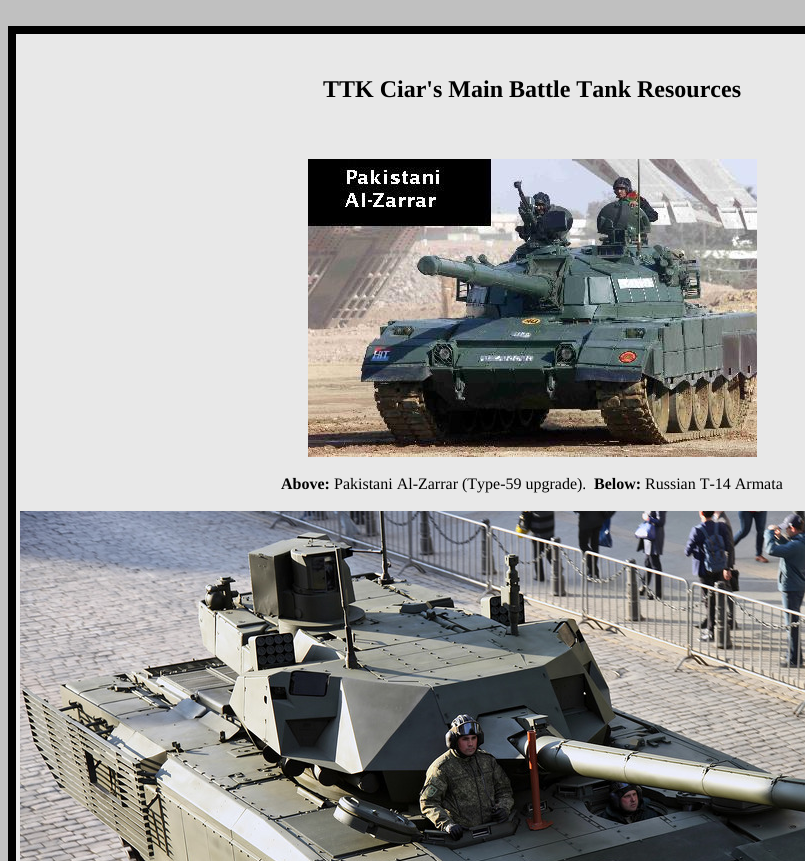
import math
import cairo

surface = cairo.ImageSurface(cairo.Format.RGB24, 805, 861)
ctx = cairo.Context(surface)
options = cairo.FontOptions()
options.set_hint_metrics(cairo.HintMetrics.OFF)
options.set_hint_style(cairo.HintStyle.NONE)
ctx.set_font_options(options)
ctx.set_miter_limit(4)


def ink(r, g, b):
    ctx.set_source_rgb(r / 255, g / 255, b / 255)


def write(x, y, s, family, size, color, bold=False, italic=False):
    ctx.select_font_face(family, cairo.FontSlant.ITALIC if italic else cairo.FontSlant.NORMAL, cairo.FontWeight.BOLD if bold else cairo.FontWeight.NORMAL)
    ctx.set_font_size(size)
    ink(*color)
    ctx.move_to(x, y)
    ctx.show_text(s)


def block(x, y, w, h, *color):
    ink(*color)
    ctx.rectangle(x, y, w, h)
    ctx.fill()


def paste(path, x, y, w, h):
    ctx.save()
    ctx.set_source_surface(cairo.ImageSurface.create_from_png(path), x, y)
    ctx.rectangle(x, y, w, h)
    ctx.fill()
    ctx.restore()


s1 = dict(family="Liberation Serif", size=24, color=(0, 0, 0), bold=True)
s2 = dict(family="Liberation Serif", size=16, color=(0, 0, 0), bold=True)
s3 = dict(family="Liberation Serif", size=16, color=(0, 0, 0))

ink(192, 192, 192)
ctx.paint()
block(16, 34, 789, 827, 232, 232, 232)
block(8, 26, 797, 8, 0, 0, 0)
block(8, 26, 8, 835, 0, 0, 0)
write(323, 97, "TTK Ciar's Main Battle Tank Resources", **s1)
paste("pic1.png", 308, 159, 449, 298)
write(281, 489, "Above:", **s2)
write(334, 489, "Pakistani Al-Zarrar (Type-59 upgrade).", **s3)
write(594, 489, "Below:", **s2)
write(645, 489, "Russian T-14 Armata", **s3)
paste("pic2.png", 20, 511, 785, 350)
surface.write_to_png("screenshot.png")
